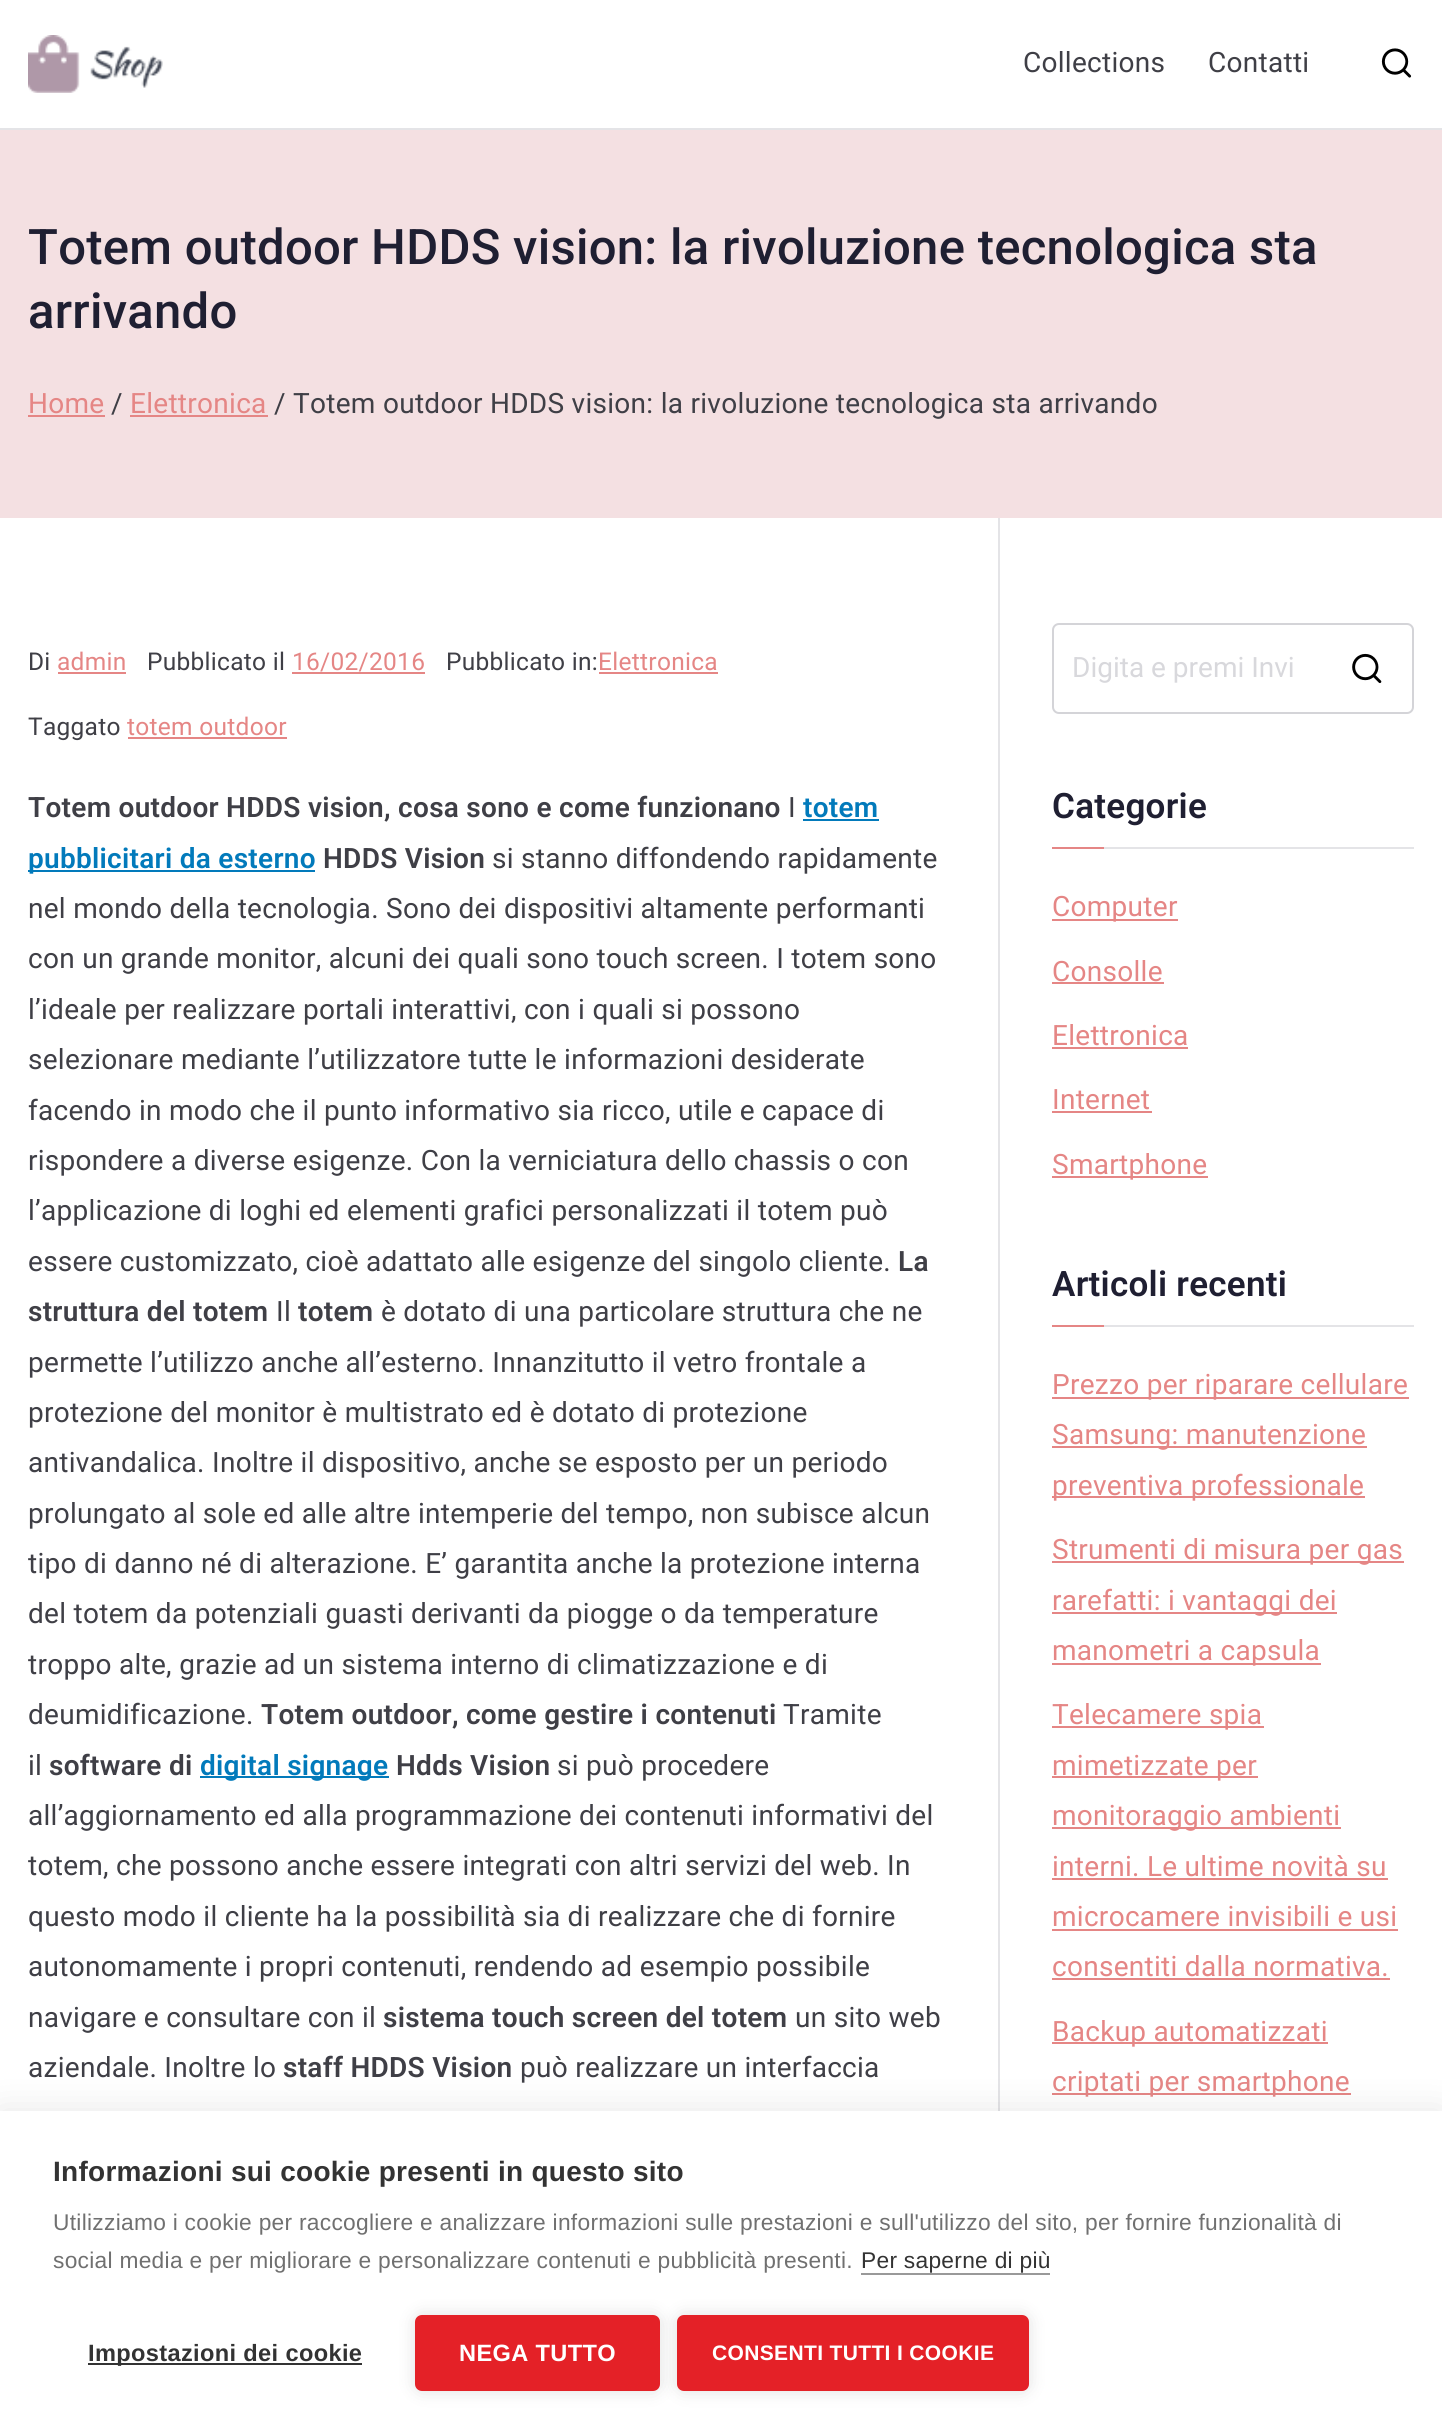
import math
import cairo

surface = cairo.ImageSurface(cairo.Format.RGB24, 1442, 2433)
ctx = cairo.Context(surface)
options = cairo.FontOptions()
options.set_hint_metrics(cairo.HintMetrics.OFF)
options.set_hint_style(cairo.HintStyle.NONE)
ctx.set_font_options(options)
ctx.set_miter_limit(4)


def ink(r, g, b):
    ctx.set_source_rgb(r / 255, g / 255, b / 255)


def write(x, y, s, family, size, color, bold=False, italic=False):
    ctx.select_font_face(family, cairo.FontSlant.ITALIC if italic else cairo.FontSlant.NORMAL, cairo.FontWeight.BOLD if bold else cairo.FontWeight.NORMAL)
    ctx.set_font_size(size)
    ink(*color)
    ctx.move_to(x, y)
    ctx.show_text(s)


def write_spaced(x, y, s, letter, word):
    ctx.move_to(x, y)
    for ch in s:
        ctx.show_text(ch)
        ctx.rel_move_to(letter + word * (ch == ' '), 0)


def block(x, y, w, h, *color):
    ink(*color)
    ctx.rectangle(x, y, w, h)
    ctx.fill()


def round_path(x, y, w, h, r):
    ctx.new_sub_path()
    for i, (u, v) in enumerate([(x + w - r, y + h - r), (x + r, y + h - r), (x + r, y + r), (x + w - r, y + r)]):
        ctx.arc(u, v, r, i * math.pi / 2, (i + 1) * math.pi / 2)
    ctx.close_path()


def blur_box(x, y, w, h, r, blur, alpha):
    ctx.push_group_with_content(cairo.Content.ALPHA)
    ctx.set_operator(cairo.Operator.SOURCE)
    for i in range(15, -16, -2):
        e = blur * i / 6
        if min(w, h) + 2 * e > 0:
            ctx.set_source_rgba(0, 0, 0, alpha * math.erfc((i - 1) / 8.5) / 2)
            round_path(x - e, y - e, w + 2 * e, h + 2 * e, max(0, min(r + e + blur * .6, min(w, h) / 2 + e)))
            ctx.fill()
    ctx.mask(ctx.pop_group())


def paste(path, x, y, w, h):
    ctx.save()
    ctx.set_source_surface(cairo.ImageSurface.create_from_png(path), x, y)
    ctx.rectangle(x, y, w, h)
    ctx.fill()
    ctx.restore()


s1 = dict(family="Roboto", size=28, color=(216, 216, 220))

ink(228, 228, 231)
ctx.paint()
block(0, 0, 1442, 128, 255, 255, 255)
paste("pic1.png", 28, 35, 135, 58)
ctx.select_font_face("Roboto")
ctx.set_font_size(28)
ink(63, 63, 70)
write_spaced(1023, 72, "Collections", 0.28, 0)
write_spaced(1208, 72, "Contatti", 0.28, 0)
paste("pic2.png", 1381, 48, 31, 30)
block(0, 130, 1442, 388, 244, 224, 226)
ctx.select_font_face("Roboto Medium")
ctx.set_font_size(49)
ink(31, 31, 50)
write_spaced(28, 264, "Totem outdoor HDDS vision: la rivoluzione tecnologica sta", 0.28, 0)
write_spaced(28, 328, "arrivando", 0.28, 0)
ctx.select_font_face("Roboto")
ctx.set_font_size(28)
ink(229, 134, 133)
write_spaced(28, 413, "Home", 0.28, 0)
block(28, 415, 77, 2, 229, 134, 133)
ink(63, 63, 70)
write_spaced(111, 413, "/", 0.28, 0)
ink(229, 134, 133)
write_spaced(130, 413, "Elettronica", 0.28, 0)
block(130, 415, 138, 2, 229, 134, 133)
ink(63, 63, 70)
write_spaced(274, 413, "/ Totem outdoor HDDS vision: la rivoluzione tecnologica sta arrivando", 0.28, 0)
block(0, 518, 1442, 1593, 255, 255, 255)
ctx.set_font_size(24.5)
ink(63, 63, 70)
write_spaced(28, 670, "Di", 0.28, 0)
ink(229, 134, 133)
write_spaced(57, 670, "admin", 0.28, 0)
block(58, 672, 68, 2, 229, 134, 133)
ink(63, 63, 70)
write_spaced(147, 670, "Pubblicato il", 0.28, 0)
ink(229, 134, 133)
write_spaced(292, 670, "16/02/2016", 0.28, 0)
block(292, 672, 133, 2, 229, 134, 133)
ink(63, 63, 70)
write_spaced(446, 670, "Pubblicato in:", 0.28, 0)
ink(229, 134, 133)
write_spaced(598, 670, "Elettronica", 0.28, 0)
block(599, 672, 119, 2, 229, 134, 133)
ink(63, 63, 70)
write_spaced(28, 735, "Taggato", 0.28, 0)
ink(229, 134, 133)
write_spaced(127, 735, "totem outdoor", 0.28, 0)
block(128, 737, 159, 2, 229, 134, 133)
ctx.select_font_face("Roboto SemiBold")
ctx.set_font_size(28)
ink(63, 63, 70)
write_spaced(28, 817, "Totem outdoor HDDS vision, cosa sono e come funzionano", 0.28, 0)
ctx.select_font_face("Roboto")
write_spaced(788, 817, "I", 0.28, 0)
ctx.select_font_face("Roboto SemiBold")
ink(2, 122, 187)
write_spaced(803, 817, "totem", 0.28, 0)
block(803, 819, 76, 2, 2, 122, 187)
block(28, 870, 287, 2, 2, 122, 187)
write_spaced(28, 868, "pubblicitari da esterno", 0.28, 0)
ink(63, 63, 70)
write_spaced(323, 868, "HDDS Vision", 0.28, 0)
ctx.select_font_face("Roboto")
write_spaced(492, 868, "si stanno diffondendo rapidamente", 0.28, 0)
write_spaced(28, 918, "nel mondo della tecnologia. Sono dei dispositivi altamente performanti", 0.28, 0)
write_spaced(28, 968, "con un grande monitor, alcuni dei quali sono touch screen. I totem sono", 0.28, 0)
write_spaced(28, 1019, "l’ideale per realizzare portali interattivi, con i quali si possono", 0.28, 0)
write_spaced(28, 1069, "selezionare mediante l’utilizzatore tutte le informazioni desiderate", 0.28, 0)
write_spaced(28, 1120, "facendo in modo che il punto informativo sia ricco, utile e capace di", 0.28, 0)
write_spaced(28, 1170, "rispondere a diverse esigenze. Con la verniciatura dello chassis o con", 0.28, 0)
write_spaced(28, 1220, "l’applicazione di loghi ed elementi grafici personalizzati il totem può", 0.28, 0)
write_spaced(28, 1271, "essere customizzato, cioè adattato alle esigenze del singolo cliente.", 0.28, 0)
ctx.select_font_face("Roboto SemiBold")
write_spaced(898, 1271, "La", 0.28, 0)
write_spaced(28, 1321, "struttura del totem", 0.28, 0)
ctx.select_font_face("Roboto")
write_spaced(276, 1321, "Il", 0.28, 0)
ctx.select_font_face("Roboto SemiBold")
write_spaced(298, 1321, "totem", 0.28, 0)
ctx.select_font_face("Roboto")
write_spaced(381, 1321, "è dotato di una particolare struttura che ne", 0.28, 0)
write_spaced(28, 1372, "permette l’utilizzo anche all’esterno. Innanzitutto il vetro frontale a", 0.28, 0)
write_spaced(28, 1422, "protezione del monitor è multistrato ed è dotato di protezione", 0.28, 0)
write_spaced(28, 1472, "antivandalica. Inoltre il dispositivo, anche se esposto per un periodo", 0.28, 0)
write_spaced(28, 1523, "prolungato al sole ed alle altre intemperie del tempo, non subisce alcun", 0.28, 0)
write_spaced(28, 1573, "tipo di danno né di alterazione. E’ garantita anche la protezione interna", 0.28, 0)
write_spaced(28, 1623, "del totem da potenziali guasti derivanti da piogge o da temperature", 0.28, 0)
write_spaced(28, 1674, "troppo alte, grazie ad un sistema interno di climatizzazione e di", 0.28, 0)
write_spaced(28, 1724, "deumidificazione.", 0.28, 0)
ctx.select_font_face("Roboto SemiBold")
write_spaced(261, 1724, "Totem outdoor, come gestire i contenuti", 0.28, 0)
ctx.select_font_face("Roboto")
write_spaced(783, 1724, "Tramite", 0.28, 0)
write_spaced(28, 1775, "il", 0.28, 0)
ctx.select_font_face("Roboto SemiBold")
write_spaced(49, 1775, "software di", 0.28, 0)
block(200, 1776, 189, 2, 2, 122, 187)
write_spaced(200, 1775, "digital signage", 0.28, 0)
ink(63, 63, 70)
write_spaced(396, 1775, "Hdds Vision", 0.28, 0)
ctx.select_font_face("Roboto")
write_spaced(557, 1775, "si può procedere", 0.28, 0)
write_spaced(28, 1825, "all’aggiornamento ed alla programmazione dei contenuti informativi del", 0.28, 0)
write_spaced(28, 1875, "totem, che possono anche essere integrati con altri servizi del web. In", 0.28, 0)
write_spaced(28, 1926, "questo modo il cliente ha la possibilità sia di realizzare che di fornire", 0.28, 0)
write_spaced(28, 1976, "autonomamente i propri contenuti, rendendo ad esempio possibile", 0.28, 0)
write_spaced(28, 2027, "navigare e consultare con il", 0.28, 0)
ctx.select_font_face("Roboto SemiBold")
write_spaced(383, 2027, "sistema touch screen del totem", 0.28, 0)
ctx.select_font_face("Roboto")
write_spaced(795, 2027, "un sito web", 0.28, 0)
write_spaced(28, 2077, "aziendale. Inoltre lo", 0.28, 0)
ctx.select_font_face("Roboto SemiBold")
write_spaced(283, 2077, "staff HDDS Vision", 0.28, 0)
ctx.select_font_face("Roboto")
write_spaced(520, 2077, "può realizzare un interfaccia", 0.28, 0)
block(998, 518, 2, 1593, 228, 228, 231)
round_path(1053, 624, 360, 89, 6)
ink(212, 212, 216)
ctx.stroke()
write(1072, 677, "Digita e premi Invi", **s1)
paste("pic3.png", 1352, 653, 30, 31)
block(1104, 847, 310, 2, 228, 228, 231)
ctx.select_font_face("Roboto SemiBold")
ctx.set_font_size(35)
ink(31, 31, 50)
write_spaced(1052, 818, "Categorie", 0.28, 0)
block(1052, 847, 52, 2, 229, 134, 133)
block(1052, 919, 126, 2, 229, 134, 133)
ctx.select_font_face("Roboto")
ctx.set_font_size(28)
write_spaced(1052, 916, "Computer", 0.28, 0)
write_spaced(1052, 981, "Consolle", 0.28, 0)
block(1052, 982, 112, 2, 229, 134, 133)
write_spaced(1052, 1045, "Elettronica", 0.28, 0)
block(1052, 1047, 136, 2, 229, 134, 133)
write_spaced(1052, 1109, "Internet", 0.28, 0)
block(1052, 1111, 100, 2, 229, 134, 133)
block(1052, 1176, 156, 2, 229, 134, 133)
write_spaced(1052, 1174, "Smartphone", 0.28, 0)
block(1104, 1325, 310, 2, 228, 228, 231)
ctx.select_font_face("Roboto SemiBold")
ctx.set_font_size(35)
ink(31, 31, 50)
write_spaced(1052, 1296, "Articoli recenti", 0.28, 0)
block(1052, 1325, 52, 2, 229, 134, 133)
block(1052, 1397, 357, 2, 229, 134, 133)
ctx.select_font_face("Roboto")
ctx.set_font_size(28)
write_spaced(1052, 1394, "Prezzo per riparare cellulare", 0.28, 0)
block(1052, 1446, 315, 2, 229, 134, 133)
write_spaced(1052, 1444, "Samsung: manutenzione", 0.28, 0)
block(1052, 1496, 313, 2, 229, 134, 133)
write_spaced(1052, 1495, "preventiva professionale", 0.28, 0)
block(1052, 1561, 352, 2, 229, 134, 133)
write_spaced(1052, 1559, "Strumenti di misura per gas", 0.28, 0)
block(1052, 1612, 285, 2, 229, 134, 133)
write_spaced(1052, 1610, "rarefatti: i vantaggi dei", 0.28, 0)
block(1052, 1663, 269, 2, 229, 134, 133)
write_spaced(1052, 1660, "manometri a capsula", 0.28, 0)
block(1052, 1726, 212, 2, 229, 134, 133)
write_spaced(1052, 1724, "Telecamere spia", 0.28, 0)
block(1052, 1776, 206, 2, 229, 134, 133)
write_spaced(1052, 1775, "mimetizzate per", 0.28, 0)
block(1052, 1827, 289, 2, 229, 134, 133)
write_spaced(1052, 1825, "monitoraggio ambienti", 0.28, 0)
write_spaced(1052, 1876, "interni. Le ultime novità su", 0.28, 0)
block(1052, 1878, 336, 2, 229, 134, 133)
write_spaced(1052, 1926, "microcamere invisibili e usi", 0.28, 0)
block(1052, 1929, 346, 2, 229, 134, 133)
write_spaced(1052, 1976, "consentiti dalla normativa.", 0.28, 0)
block(1052, 1978, 338, 2, 229, 134, 133)
block(1052, 2042, 276, 2, 229, 134, 133)
write_spaced(1052, 2041, "Backup automatizzati", 0.28, 0)
block(1052, 2093, 299, 2, 229, 134, 133)
write_spaced(1052, 2091, "criptati per smartphone", 0.28, 0)
ink(0, 0, 0)
blur_box(0, 2111, 1442, 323, 0, 17.5, 0.1)
block(0, 2111, 1442, 322, 255, 255, 255)
ctx.select_font_face("Liberation Sans", cairo.FontSlant.NORMAL, cairo.FontWeight.BOLD)
ink(51, 51, 51)
write_spaced(53, 2181, "Informazioni sui cookie presenti in questo sito", 0.28, 0)
ctx.select_font_face("Liberation Sans")
ctx.set_font_size(22.75)
ink(112, 112, 112)
write_spaced(53, 2230, "Utilizziamo i cookie per raccogliere e analizzare informazioni sulle prestazioni e sull'utilizzo del sito, per fornire funzionalità di", 0.28, 0)
write_spaced(53, 2268, "social media e per migliorare e personalizzare contenuti e pubblicità presenti.", 0.28, 0)
ink(51, 51, 51)
write_spaced(861, 2268, "Per saperne di più", 0.28, 0)
block(861, 2273, 189, 2, 153, 153, 153)
block(88, 2363, 274, 2, 51, 51, 51)
ctx.select_font_face("Liberation Sans", cairo.FontSlant.NORMAL, cairo.FontWeight.BOLD)
ctx.set_font_size(23.6)
write_spaced(88, 2361, "Impostazioni dei cookie", 0.35, 0)
ink(0, 0, 0)
blur_box(415, 2315, 245, 76, 7, 9, 0.12)
ink(228, 33, 39)
round_path(415, 2315, 245, 76, 7)
ctx.fill()
ink(255, 255, 255)
write_spaced(459, 2361, "NEGA TUTTO", 0.35, 0)
ink(0, 0, 0)
blur_box(677, 2315, 352, 76, 7, 9, 0.12)
ink(228, 33, 39)
round_path(677, 2315, 352, 76, 7)
ctx.fill()
ctx.set_font_size(21)
ink(255, 255, 255)
write_spaced(712, 2360, "CONSENTI TUTTI I COOKIE", 0.35, 0)
surface.write_to_png("screenshot.png")
